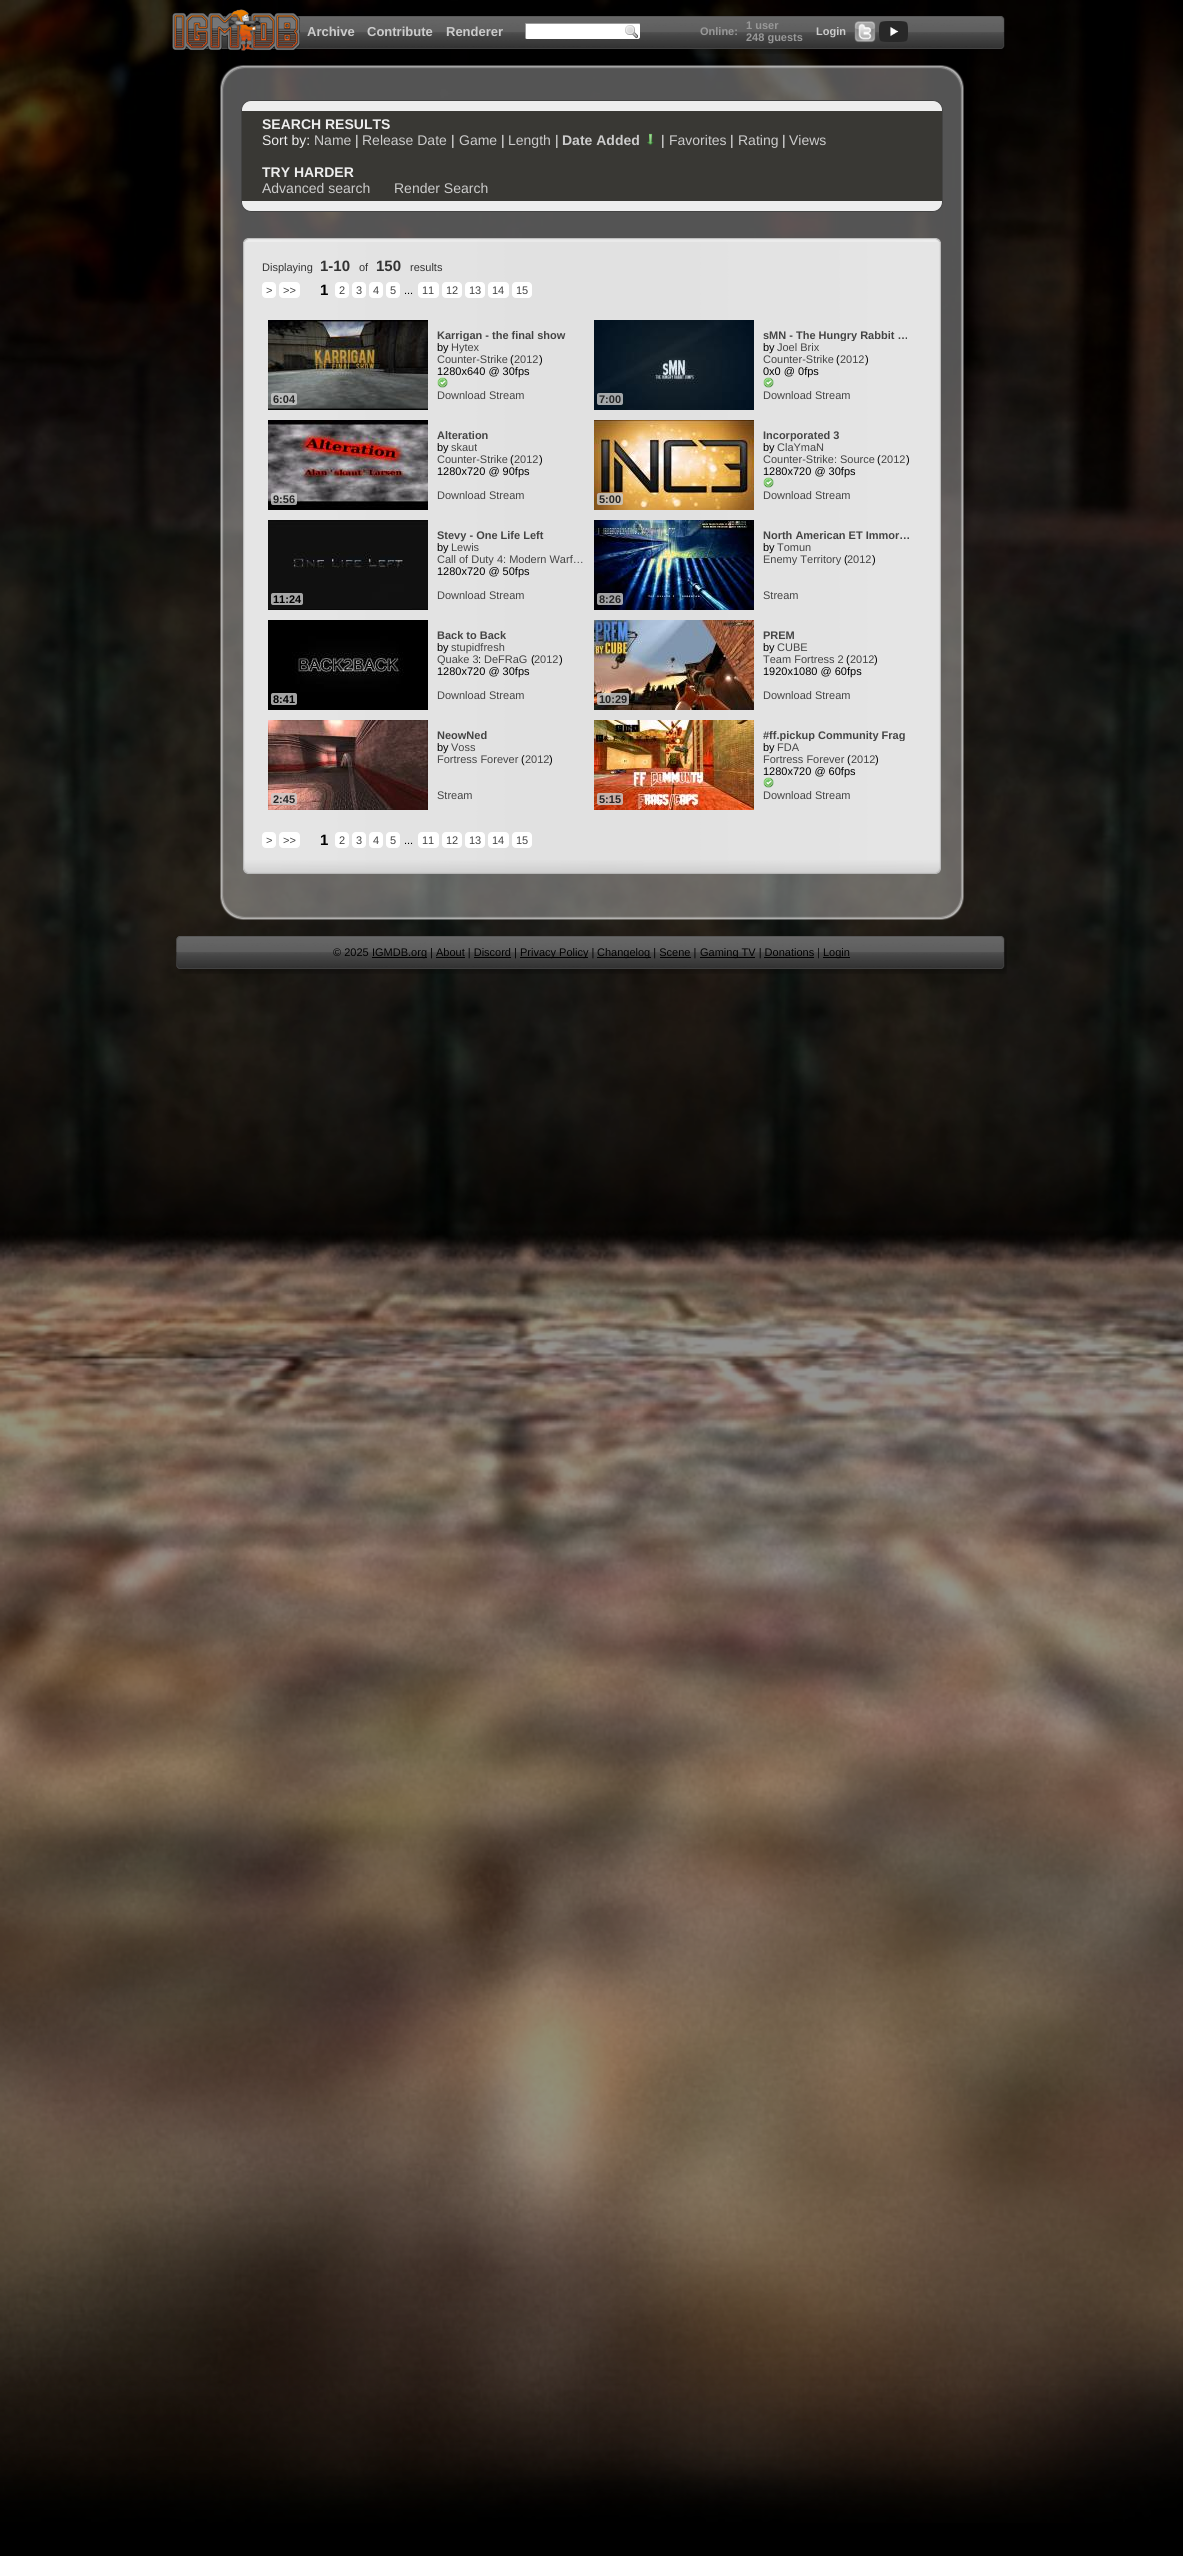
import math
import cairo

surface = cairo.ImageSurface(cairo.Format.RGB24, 1183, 2556)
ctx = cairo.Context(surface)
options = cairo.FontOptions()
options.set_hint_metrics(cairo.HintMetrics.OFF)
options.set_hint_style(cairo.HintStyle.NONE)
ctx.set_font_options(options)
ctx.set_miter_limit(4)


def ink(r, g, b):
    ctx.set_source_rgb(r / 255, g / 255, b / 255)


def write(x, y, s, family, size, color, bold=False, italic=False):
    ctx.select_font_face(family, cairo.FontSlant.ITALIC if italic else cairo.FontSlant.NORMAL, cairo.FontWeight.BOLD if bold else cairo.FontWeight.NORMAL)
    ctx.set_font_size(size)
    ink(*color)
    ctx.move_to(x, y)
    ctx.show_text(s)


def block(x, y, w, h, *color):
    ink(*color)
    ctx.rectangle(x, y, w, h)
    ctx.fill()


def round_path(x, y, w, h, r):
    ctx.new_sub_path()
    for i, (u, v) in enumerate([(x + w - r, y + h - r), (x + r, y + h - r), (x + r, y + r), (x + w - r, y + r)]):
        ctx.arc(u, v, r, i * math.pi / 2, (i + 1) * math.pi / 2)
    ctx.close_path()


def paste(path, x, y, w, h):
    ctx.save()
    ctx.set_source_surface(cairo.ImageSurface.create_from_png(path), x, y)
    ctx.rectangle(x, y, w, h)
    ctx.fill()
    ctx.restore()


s1 = dict(family="Liberation Sans", size=13, color=(204, 204, 204), bold=True)
s2 = dict(family="Liberation Sans", size=11, color=(153, 153, 153), bold=True)
s3 = dict(family="Liberation Sans", size=11, color=(204, 204, 204), bold=True)
s4 = dict(family="Liberation Sans", size=14, color=(238, 238, 238), bold=True)
s5 = dict(family="Liberation Sans", size=14, color=(238, 238, 238))
s6 = dict(family="Liberation Sans", size=14, color=(204, 204, 204))
s7 = dict(family="Liberation Sans", size=14, color=(204, 204, 204), bold=True)
s8 = dict(family="Liberation Sans", size=11, color=(51, 51, 51))
s9 = dict(family="Liberation Sans", size=15, color=(51, 51, 51), bold=True)
s10 = dict(family="Liberation Sans", size=11, color=(68, 68, 68))
s11 = dict(family="Liberation Sans", size=15, color=(0, 0, 0), bold=True)
s12 = dict(family="Liberation Sans", size=11, color=(0, 0, 0))
s13 = dict(family="Liberation Sans", size=11, color=(37, 37, 37), bold=True)
s14 = dict(family="Liberation Sans", size=11, color=(68, 68, 68), bold=True)
s15 = dict(family="Liberation Sans", size=11, color=(0, 0, 0), bold=True)

ink(0, 0, 0)
ctx.paint()
paste("pic1.png", 0, 0, 1183, 2523)
paste("pic2.png", 176, 16, 829, 38)
paste("pic3.png", 172, 9, 128, 42)
write(307, 36, "Archive", **s1)
write(367, 36, "Contribute", **s1)
write(446, 36, "Renderer", **s1)
ink(255, 255, 255)
round_path(525, 23, 115, 16, 2)
ctx.fill()
paste("pic4.png", 625, 25, 13, 14)
block(526, 23, 113, 1, 154, 154, 154)
block(525, 24, 1, 14, 154, 154, 154)
write(700, 35, "Online:", **s2)
write(746, 29, "1 user", **s2)
write(746, 41, "248 guests", **s2)
write(816, 35, "Login", **s3)
paste("pic5.png", 854, 21, 22, 22)
paste("pic6.png", 879, 21, 29, 21)
paste("pic7.png", 220, 65, 744, 35)
paste("pic8.png", 220, 100, 744, 785)
ink(238, 238, 238)
round_path(241.5, 100.5, 701, 111, 9.5)
ctx.fill_preserve()
ink(68, 68, 68)
ctx.set_line_width(1)
ctx.stroke()
block(242, 111, 700, 90, 57, 56, 52)
write(262, 129, "SEARCH RESULTS", **s4)
write(262, 145, "Sort by:", **s5)
write(314, 145, "Name", **s6)
write(355, 145, "|", **s5)
write(362, 145, "Release Date", **s6)
write(451, 145, "|", **s5)
write(459, 145, "Game", **s6)
write(501, 145, "|", **s5)
write(508, 145, "Length", **s6)
write(555, 145, "|", **s5)
write(562, 145, "Date Added", **s7)
paste("pic9.png", 647, 133, 7, 13)
write(661, 145, "|", **s5)
write(669, 145, "Favorites", **s6)
write(730, 145, "|", **s5)
write(738, 145, "Rating", **s6)
write(782, 145, "|", **s5)
write(789, 145, "Views", **s6)
write(262, 177, "TRY HARDER", **s4)
write(262, 193, "Advanced search", **s6)
write(394, 193, "Render Search", **s6)
paste("pic10.png", 243, 238, 698, 4)
paste("pic11.png", 243, 242, 698, 608)
write(262, 271, "Displaying", **s8)
write(320, 271, "1-10", **s9)
write(359, 271, "of", **s8)
write(376, 271, "150", **s9)
write(410, 271, "results", **s8)
ink(255, 255, 255)
round_path(262.5, 282.5, 13, 15, 3.5)
ctx.fill_preserve()
ctx.stroke()
write(266, 294, ">", **s10)
ink(255, 255, 255)
round_path(279.5, 282.5, 20, 15, 3.5)
ctx.fill_preserve()
ctx.stroke()
write(283, 294, ">>", **s10)
write(320, 295, "1", **s11)
ink(255, 255, 255)
round_path(335.5, 282.5, 13, 15, 3.5)
ctx.fill_preserve()
ctx.stroke()
write(339, 294, "2", **s10)
ink(255, 255, 255)
round_path(352.5, 282.5, 13, 15, 3.5)
ctx.fill_preserve()
ctx.stroke()
write(356, 294, "3", **s10)
ink(255, 255, 255)
round_path(369.5, 282.5, 13, 15, 3.5)
ctx.fill_preserve()
ctx.stroke()
write(373, 294, "4", **s10)
ink(255, 255, 255)
round_path(386.5, 282.5, 13, 15, 3.5)
ctx.fill_preserve()
ctx.stroke()
write(390, 294, "5", **s10)
write(404, 294, "...", **s12)
ink(255, 255, 255)
round_path(418.5, 282.5, 20, 15, 3.5)
ctx.fill_preserve()
ctx.stroke()
write(422, 294, "11", **s10)
ink(255, 255, 255)
round_path(442.5, 282.5, 19, 15, 3.5)
ctx.fill_preserve()
ctx.stroke()
write(446, 294, "12", **s10)
ink(255, 255, 255)
round_path(465.5, 282.5, 19, 15, 3.5)
ctx.fill_preserve()
ctx.stroke()
write(469, 294, "13", **s10)
ink(255, 255, 255)
round_path(488.5, 282.5, 20, 15, 3.5)
ctx.fill_preserve()
ctx.stroke()
write(492, 294, "14", **s10)
ink(255, 255, 255)
round_path(512.5, 282.5, 19, 15, 3.5)
ctx.fill_preserve()
ctx.stroke()
write(516, 294, "15", **s10)
paste("pic12.png", 268, 320, 160, 90)
ctx.set_source_rgba(0.8, 0.8, 0.8, 0.8)
round_path(271, 393, 26, 12, 2)
ctx.fill()
write(273, 403, "6:04", **s13)
ctx.save()
ctx.rectangle(437, 329, 149, 12)
ctx.clip()
write(437, 339, "Karrigan - the final show", **s14)
ctx.restore()
write(437, 351, "by", **s12)
write(451, 351, "Hytex", **s10)
write(437, 363, "Counter-Strike", **s10)
write(510, 363, "(", **s12)
write(514, 363, "2012", **s10)
write(539, 363, ")", **s12)
write(437, 375, "1280x640 @ 30fps", **s12)
paste("pic13.png", 437, 377, 11, 11)
write(437, 399, "Download Stream", **s10)
paste("pic14.png", 594, 320, 160, 90)
ctx.set_source_rgba(0.8, 0.8, 0.8, 0.8)
round_path(597, 393, 26, 12, 2)
ctx.fill()
write(599, 403, "7:00", **s13)
ctx.save()
ctx.rectangle(763, 329, 149, 12)
ctx.clip()
write(763, 339, "sMN - The Hungry Rabbit …", **s14)
ctx.restore()
write(763, 351, "by", **s12)
write(777, 351, "Joel Brix", **s10)
write(763, 363, "Counter-Strike", **s10)
write(836, 363, "(", **s12)
write(840, 363, "2012", **s10)
write(865, 363, ")", **s12)
write(763, 375, "0x0 @ 0fps", **s12)
paste("pic15.png", 763, 377, 11, 11)
write(763, 399, "Download Stream", **s10)
paste("pic16.png", 268, 420, 160, 90)
ctx.set_source_rgba(0.8, 0.8, 0.8, 0.8)
round_path(271, 493, 26, 12, 2)
ctx.fill()
write(273, 503, "9:56", **s13)
write(437, 439, "Alteration", **s14)
write(437, 451, "by", **s12)
write(451, 451, "skaut", **s10)
write(437, 463, "Counter-Strike", **s10)
write(510, 463, "(", **s12)
write(514, 463, "2012", **s10)
write(539, 463, ")", **s12)
write(437, 475, "1280x720 @ 90fps", **s12)
write(437, 499, "Download Stream", **s10)
paste("pic17.png", 594, 420, 160, 90)
ctx.set_source_rgba(0.8, 0.8, 0.8, 0.8)
round_path(597, 493, 26, 12, 2)
ctx.fill()
write(599, 503, "5:00", **s13)
write(763, 439, "Incorporated 3", **s14)
write(763, 451, "by", **s12)
write(777, 451, "ClaYmaN", **s10)
write(763, 463, "Counter-Strike: Source", **s10)
write(877, 463, "(", **s12)
write(881, 463, "2012", **s10)
write(906, 463, ")", **s12)
write(763, 475, "1280x720 @ 30fps", **s12)
paste("pic15.png", 763, 477, 11, 11)
write(763, 499, "Download Stream", **s10)
paste("pic18.png", 268, 520, 160, 90)
ink(166, 166, 166)
round_path(271, 593, 32, 12, 2)
ctx.fill()
write(273, 603, "11:24", **s15)
write(437, 539, "Stevy - One Life Left", **s14)
write(437, 551, "by", **s12)
write(451, 551, "Lewis", **s10)
write(437, 563, "Call of Duty 4: Modern Warf…", **s10)
write(437, 575, "1280x720 @ 50fps", **s12)
write(437, 599, "Download Stream", **s10)
paste("pic19.png", 594, 520, 160, 90)
ctx.set_source_rgba(0.8, 0.8, 0.8, 0.8)
round_path(597, 593, 26, 12, 2)
ctx.fill()
write(599, 603, "8:26", **s13)
write(763, 539, "North American ET Immor…", **s14)
write(763, 551, "by", **s12)
write(777, 551, "Tomun", **s10)
ctx.save()
ctx.rectangle(763, 553, 149, 12)
ctx.clip()
write(763, 563, "Enemy Territory", **s10)
ctx.restore()
write(844, 563, "(", **s12)
write(847, 563, "2012", **s10)
write(872, 563, ")", **s12)
write(763, 599, "Stream", **s10)
paste("pic20.png", 268, 620, 160, 90)
ink(163, 163, 163)
round_path(271, 693, 26, 12, 2)
ctx.fill()
write(273, 703, "8:41", **s15)
write(437, 639, "Back to Back", **s14)
write(437, 651, "by", **s12)
write(451, 651, "stupidfresh", **s10)
write(437, 663, "Quake 3", **s10)
write(478, 663, ":", **s12)
write(484, 663, "DeFRaG", **s10)
write(531, 663, "(", **s12)
write(534, 663, "2012", **s10)
write(559, 663, ")", **s12)
write(437, 675, "1280x720 @ 30fps", **s12)
write(437, 699, "Download Stream", **s10)
paste("pic21.png", 594, 620, 160, 90)
ctx.set_source_rgba(0.8, 0.8, 0.8, 0.8)
round_path(597, 693, 32, 12, 2)
ctx.fill()
write(599, 703, "10:29", **s13)
write(763, 639, "PREM", **s14)
write(763, 651, "by", **s12)
write(777, 651, "CUBE", **s10)
write(763, 663, "Team Fortress 2", **s10)
write(846, 663, "(", **s12)
write(850, 663, "2012", **s10)
write(874, 663, ")", **s12)
write(763, 675, "1920x1080 @ 60fps", **s12)
write(763, 699, "Download Stream", **s10)
paste("pic22.png", 268, 720, 160, 90)
ctx.set_source_rgba(0.8, 0.8, 0.8, 0.8)
round_path(271, 793, 26, 12, 2)
ctx.fill()
write(273, 803, "2:45", **s13)
write(437, 739, "NeowNed", **s14)
write(437, 751, "by", **s12)
write(451, 751, "Voss", **s10)
write(437, 763, "Fortress Forever", **s10)
write(521, 763, "(", **s12)
write(525, 763, "2012", **s10)
write(549, 763, ")", **s12)
write(437, 799, "Stream", **s10)
paste("pic23.png", 594, 720, 160, 90)
ctx.set_source_rgba(0.8, 0.8, 0.8, 0.8)
round_path(597, 793, 26, 12, 2)
ctx.fill()
write(599, 803, "5:15", **s13)
ctx.save()
ctx.rectangle(763, 729, 149, 12)
ctx.clip()
write(763, 739, "#ff.pickup Community Frag", **s14)
ctx.restore()
write(763, 751, "by", **s12)
write(777, 751, "FDA", **s10)
write(763, 763, "Fortress Forever", **s10)
write(847, 763, "(", **s12)
write(851, 763, "2012", **s10)
write(875, 763, ")", **s12)
write(763, 775, "1280x720 @ 60fps", **s12)
paste("pic15.png", 763, 777, 11, 11)
write(763, 799, "Download Stream", **s10)
ink(255, 255, 255)
round_path(262.5, 832.5, 13, 15, 3.5)
ctx.fill_preserve()
ctx.stroke()
write(266, 844, ">", **s10)
ink(255, 255, 255)
round_path(279.5, 832.5, 20, 15, 3.5)
ctx.fill_preserve()
ctx.stroke()
write(283, 844, ">>", **s10)
write(320, 845, "1", **s11)
ink(255, 255, 255)
round_path(335.5, 832.5, 13, 15, 3.5)
ctx.fill_preserve()
ctx.stroke()
write(339, 844, "2", **s10)
ink(255, 255, 255)
round_path(352.5, 832.5, 13, 15, 3.5)
ctx.fill_preserve()
ctx.stroke()
write(356, 844, "3", **s10)
ink(255, 255, 255)
round_path(369.5, 832.5, 13, 15, 3.5)
ctx.fill_preserve()
ctx.stroke()
write(373, 844, "4", **s10)
ink(255, 255, 255)
round_path(386.5, 832.5, 13, 15, 3.5)
ctx.fill_preserve()
ctx.stroke()
write(390, 844, "5", **s10)
write(404, 844, "...", **s12)
ink(255, 255, 255)
round_path(418.5, 832.5, 20, 15, 3.5)
ctx.fill_preserve()
ctx.stroke()
write(422, 844, "11", **s10)
ink(255, 255, 255)
round_path(442.5, 832.5, 19, 15, 3.5)
ctx.fill_preserve()
ctx.stroke()
write(446, 844, "12", **s10)
ink(255, 255, 255)
round_path(465.5, 832.5, 19, 15, 3.5)
ctx.fill_preserve()
ctx.stroke()
write(469, 844, "13", **s10)
ink(255, 255, 255)
round_path(488.5, 832.5, 20, 15, 3.5)
ctx.fill_preserve()
ctx.stroke()
write(492, 844, "14", **s10)
ink(255, 255, 255)
round_path(512.5, 832.5, 19, 15, 3.5)
ctx.fill_preserve()
ctx.stroke()
write(516, 844, "15", **s10)
paste("pic24.png", 243, 850, 698, 24)
paste("pic25.png", 220, 885, 744, 35)
paste("pic26.png", 176, 936, 831, 38)
write(333, 956, "© 2025", **s12)
block(372, 957, 55, 1, 0, 0, 0)
write(372, 956, "IGMDB.org | About | Discord |", **s12)
block(520, 957, 68, 1, 0, 0, 0)
write(520, 956, "Privacy Policy |", **s12)
block(597, 957, 54, 1, 0, 0, 0)
write(597, 956, "Changelog | Scene |", **s12)
block(700, 957, 55, 1, 0, 0, 0)
write(700, 956, "Gaming TV | Donations |", **s12)
block(823, 957, 27, 1, 0, 0, 0)
write(823, 956, "Login", **s12)
block(436, 957, 29, 1, 0, 0, 0)
block(474, 957, 37, 1, 0, 0, 0)
block(660, 957, 31, 1, 0, 0, 0)
block(764, 957, 50, 1, 0, 0, 0)
surface.write_to_png("screenshot.png")
